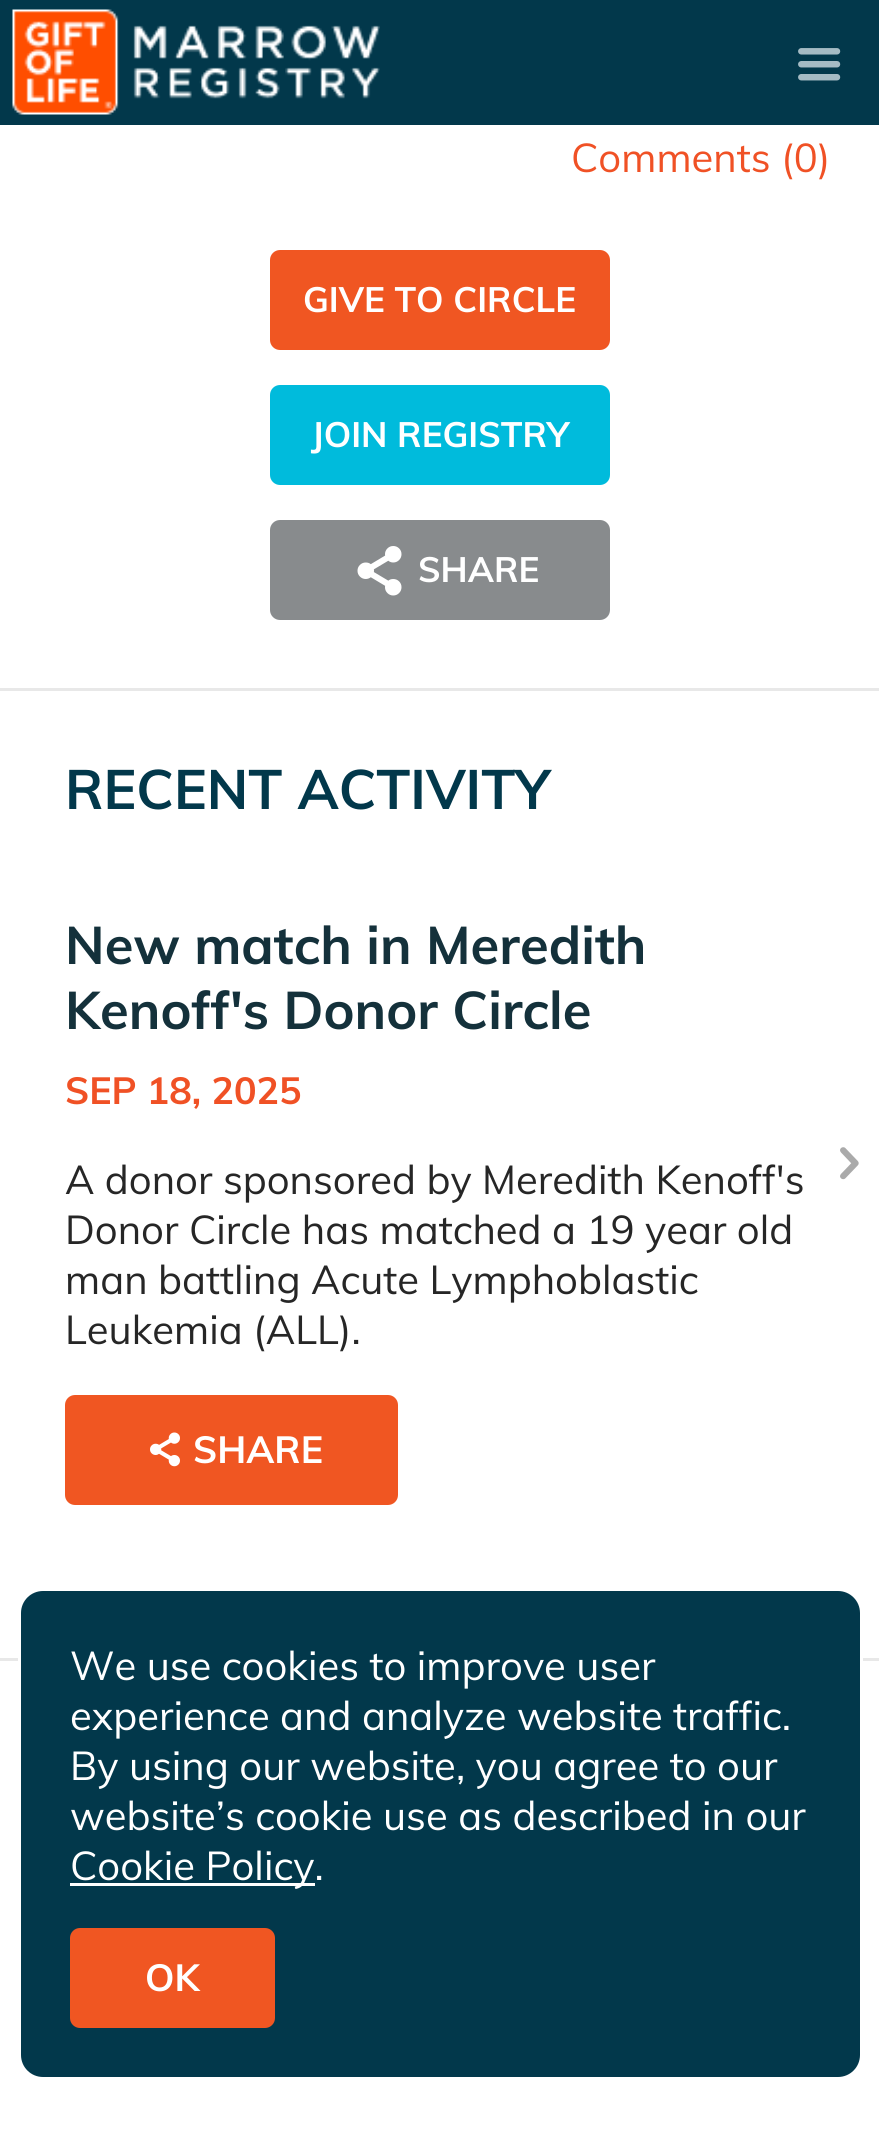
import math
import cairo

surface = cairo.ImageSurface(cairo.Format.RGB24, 879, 2130)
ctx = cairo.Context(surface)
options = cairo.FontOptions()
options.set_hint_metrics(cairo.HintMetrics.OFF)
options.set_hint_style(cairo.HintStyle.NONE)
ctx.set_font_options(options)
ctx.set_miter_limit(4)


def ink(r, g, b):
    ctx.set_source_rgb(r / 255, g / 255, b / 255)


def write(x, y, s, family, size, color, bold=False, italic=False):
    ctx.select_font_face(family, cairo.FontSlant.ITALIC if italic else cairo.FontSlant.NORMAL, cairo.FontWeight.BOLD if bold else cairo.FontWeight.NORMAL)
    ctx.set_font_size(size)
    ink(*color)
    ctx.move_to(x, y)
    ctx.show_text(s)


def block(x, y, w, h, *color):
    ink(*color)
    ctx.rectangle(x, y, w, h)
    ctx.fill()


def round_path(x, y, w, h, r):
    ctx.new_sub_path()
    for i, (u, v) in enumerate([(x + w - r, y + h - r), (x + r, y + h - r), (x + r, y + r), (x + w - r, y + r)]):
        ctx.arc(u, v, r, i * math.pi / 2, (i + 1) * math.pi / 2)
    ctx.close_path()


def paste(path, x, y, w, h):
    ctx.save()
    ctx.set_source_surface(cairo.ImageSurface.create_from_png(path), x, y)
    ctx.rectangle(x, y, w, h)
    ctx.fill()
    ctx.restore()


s1 = dict(family="Muli", size=40, color=(240, 81, 37))
s2 = dict(family="Muli", size=35, color=(255, 255, 255), bold=True)
s3 = dict(family="Muli", size=55, color=(2, 56, 75), bold=True)
s4 = dict(family="Muli", size=52.5, color=(20, 49, 59), bold=True)
s5 = dict(family="Muli", size=37.5, color=(240, 81, 37), bold=True)
s6 = dict(family="Muli", size=40, color=(38, 38, 38))
s7 = dict(family="Muli", size=37.5, color=(255, 255, 255), bold=True)
s8 = dict(family="Muli", size=40, color=(255, 255, 255))

ink(255, 255, 255)
ctx.paint()
block(0, 0, 879, 125, 2, 56, 75)
paste("pic1.png", 12, 9, 368, 106)
paste("pic2.png", 798, 48, 43, 33)
write(571, 172, "Comments (0)", **s1)
ink(240, 86, 34)
round_path(270, 250, 340, 100, 10)
ctx.fill()
write(303, 312, "GIVE TO CIRCLE", **s2)
ink(0, 187, 220)
round_path(270, 385, 340, 100, 10)
ctx.fill()
write(311, 447, "JOIN REGISTRY", **s2)
ink(136, 139, 141)
round_path(270, 520, 340, 100, 10)
ctx.fill()
paste("pic3.png", 357, 546, 45, 50)
write(418, 582, "SHARE", **s2)
block(0, 688, 879, 3, 232, 232, 232)
write(65, 809, "RECENT ACTIVITY", **s3)
write(65, 964, "New match in Meredith", **s4)
write(65, 1029, "Kenoff's Donor Circle", **s4)
write(65, 1104, "SEP 18, 2025", **s5)
write(65, 1194, "A donor sponsored by Meredith Kenoff's", **s6)
write(65, 1244, "Donor Circle has matched a 19 year old", **s6)
write(65, 1294, "man battling Acute Lymphoblastic", **s6)
write(65, 1344, "Leukemia (ALL).", **s6)
ink(240, 86, 34)
round_path(65, 1395, 333, 110, 10)
ctx.fill()
paste("pic4.png", 150, 1432, 30, 35)
write(193, 1463, "SHARE", **s7)
paste("pic5.png", 840, 1147, 19, 33)
block(0, 1658, 879, 3, 232, 232, 232)
ink(2, 56, 75)
round_path(19.5, 1589.5, 842, 489, 23.5)
ctx.fill_preserve()
ink(255, 255, 255)
ctx.set_line_width(3)
ctx.stroke()
write(70, 1680, "We use cookies to improve user", **s8)
write(70, 1730, "experience and analyze website traffic.", **s8)
write(70, 1780, "By using our website, you agree to our", **s8)
write(70, 1830, "website’s cookie use as described in our", **s8)
block(70, 1883, 245, 3, 255, 255, 255)
write(70, 1880, "Cookie Policy.", **s8)
ink(240, 86, 34)
round_path(70, 1928, 205, 100, 10)
ctx.fill()
write(145, 1991, "OK", **s7)
surface.write_to_png("screenshot.png")
